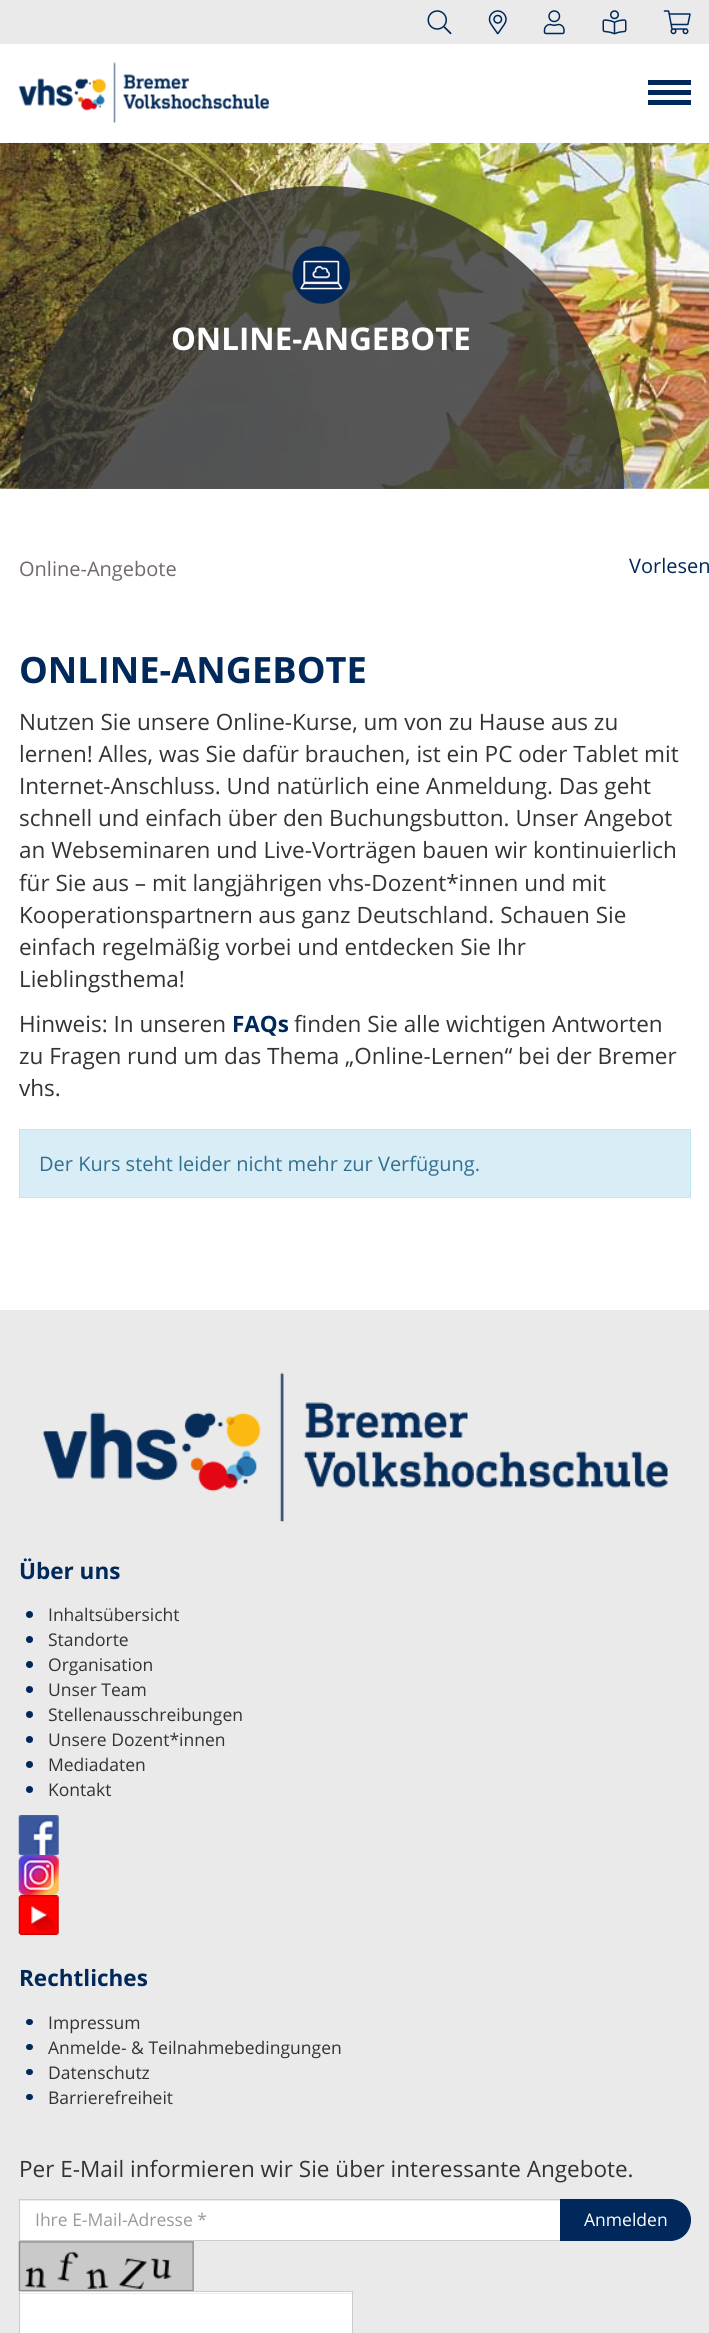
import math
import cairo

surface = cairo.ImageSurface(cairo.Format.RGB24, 709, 2333)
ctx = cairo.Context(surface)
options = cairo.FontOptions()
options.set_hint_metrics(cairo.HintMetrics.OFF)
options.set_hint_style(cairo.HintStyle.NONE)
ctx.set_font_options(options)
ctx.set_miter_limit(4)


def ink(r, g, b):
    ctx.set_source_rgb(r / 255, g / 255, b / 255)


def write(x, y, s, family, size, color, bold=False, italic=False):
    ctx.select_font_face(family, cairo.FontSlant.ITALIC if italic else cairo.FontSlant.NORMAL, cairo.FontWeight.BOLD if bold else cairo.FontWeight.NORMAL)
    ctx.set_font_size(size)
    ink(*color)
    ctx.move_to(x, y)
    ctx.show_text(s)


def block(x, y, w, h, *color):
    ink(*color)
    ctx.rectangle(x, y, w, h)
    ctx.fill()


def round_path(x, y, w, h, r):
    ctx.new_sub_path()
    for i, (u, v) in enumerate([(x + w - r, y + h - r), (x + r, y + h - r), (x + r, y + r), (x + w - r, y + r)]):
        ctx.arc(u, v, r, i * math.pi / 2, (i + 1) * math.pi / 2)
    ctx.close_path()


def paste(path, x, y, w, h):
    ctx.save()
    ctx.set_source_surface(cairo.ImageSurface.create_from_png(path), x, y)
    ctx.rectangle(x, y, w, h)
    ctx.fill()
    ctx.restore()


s1 = dict(family="Open Sans", size=31.25, color=(255, 255, 255), bold=True)
s2 = dict(family="Open Sans", size=20, color=(114, 105, 105))
s3 = dict(family="Open Sans", size=20, color=(0, 40, 90))
s4 = dict(family="Open Sans", size=36.25, color=(0, 40, 90), bold=True)
s5 = dict(family="Open Sans", size=22.5, color=(51, 51, 51))
s6 = dict(family="Open Sans", size=22.5, color=(0, 40, 90), bold=True)
s7 = dict(family="Open Sans", size=20, color=(49, 112, 143))
s8 = dict(family="Open Sans", size=17.5, color=(51, 51, 51))
s9 = dict(family="Open Sans", size=17.5, color=(153, 153, 153))
s10 = dict(family="Open Sans", size=17.5, color=(255, 255, 255))

ink(255, 255, 255)
ctx.paint()
block(0, 0, 709, 44, 234, 234, 234)
paste("pic1.png", 427, 10, 25, 25)
paste("pic2.png", 488, 10, 19, 25)
paste("pic3.png", 543, 10, 22, 25)
paste("pic4.png", 602, 10, 25, 25)
paste("pic5.png", 663, 10, 28, 25)
paste("pic7.png", 0, 142, 709, 347)
ctx.set_source_rgba(1, 1, 1, 0.97)
ctx.rectangle(0, 142, 709, 1)
ctx.fill()
paste("pic6.png", 18, 62, 251, 61)
block(648, 80, 43, 5, 0, 40, 90)
block(648, 90, 43, 5, 0, 40, 90)
block(648, 100, 43, 5, 0, 40, 90)
ctx.set_source_rgba(0.2, 0.2, 0.2, 0.8)
ctx.new_path()
ctx.move_to(321.5, 186)
ctx.curve_to(488.5, 186, 624, 321.5, 624, 488.5)
ctx.line_to(624, 489)
ctx.line_to(19, 489)
ctx.line_to(19, 488.5)
ctx.curve_to(19, 321.5, 154.5, 186, 321.5, 186)
ctx.close_path()
ctx.fill()
paste("pic8.png", 292, 246, 58, 58)
write(171, 350, "ONLINE-ANGEBOTE", **s1)
write(19, 576, "Online-Angebote", **s2)
write(629, 573, "Vorlesen", **s3)
write(19, 683, "ONLINE-ANGEBOTE", **s4)
write(19, 730, "Nutzen Sie unsere Online-Kurse, um von zu Hause aus zu", **s5)
write(19, 762, "lernen! Alles, was Sie dafür brauchen, ist ein PC oder Tablet mit", **s5)
write(19, 794, "Internet-Anschluss. Und natürlich eine Anmeldung. Das geht", **s5)
write(19, 826, "schnell und einfach über den Buchungsbutton. Unser Angebot", **s5)
write(19, 858, "an Webseminaren und Live-Vorträgen bauen wir kontinuierlich", **s5)
write(19, 891, "für Sie aus – mit langjährigen vhs-Dozent*innen und mit", **s5)
write(19, 923, "Kooperationspartnern aus ganz Deutschland. Schauen Sie", **s5)
write(19, 955, "einfach regelmäßig vorbei und entdecken Sie Ihr", **s5)
write(19, 987, "Lieblingsthema!", **s5)
write(19, 1032, "Hinweis: In unseren", **s5)
write(232, 1032, "FAQs", **s6)
write(294, 1032, "finden Sie alle wichtigen Antworten", **s5)
write(19, 1064, "zu Fragen rund um das Thema „Online-Lernen“ bei der Bremer", **s5)
write(19, 1096, "vhs.", **s5)
ink(217, 237, 247)
ctx.rectangle(19.5, 1129.5, 671, 68)
ctx.fill_preserve()
ink(188, 232, 241)
ctx.set_line_width(1)
ctx.stroke()
write(39, 1171, "Der Kurs steht leider nicht mehr zur Verfügung.", **s7)
block(0, 1310, 709, 1023, 234, 234, 234)
paste("pic9.png", 42, 1372, 626, 150)
write(19, 1579, "Über uns", **s6)
ctx.new_path()
ctx.arc(29.5, 1614.5, 3.5, 0, 2 * math.pi)
ctx.fill()
write(48, 1621, "Inhaltsübersicht", **s8)
ink(0, 40, 90)
ctx.new_path()
ctx.arc(29.5, 1639.5, 3.5, 0, 2 * math.pi)
ctx.fill()
write(48, 1646, "Standorte", **s8)
ink(0, 40, 90)
ctx.new_path()
ctx.arc(29.5, 1664.5, 3.5, 0, 2 * math.pi)
ctx.fill()
write(48, 1671, "Organisation", **s8)
ink(0, 40, 90)
ctx.new_path()
ctx.arc(29.5, 1689.5, 3.5, 0, 2 * math.pi)
ctx.fill()
write(48, 1696, "Unser Team", **s8)
ink(0, 40, 90)
ctx.new_path()
ctx.arc(29.5, 1714.5, 3.5, 0, 2 * math.pi)
ctx.fill()
write(48, 1721, "Stellenausschreibungen", **s8)
ink(0, 40, 90)
ctx.new_path()
ctx.arc(29.5, 1739.5, 3.5, 0, 2 * math.pi)
ctx.fill()
write(48, 1746, "Unsere Dozent*innen", **s8)
ink(0, 40, 90)
ctx.new_path()
ctx.arc(29.5, 1764.5, 3.5, 0, 2 * math.pi)
ctx.fill()
write(48, 1771, "Mediadaten", **s8)
ink(0, 40, 90)
ctx.new_path()
ctx.arc(29.5, 1789.5, 3.5, 0, 2 * math.pi)
ctx.fill()
write(48, 1796, "Kontakt", **s8)
paste("pic10.png", 18, 1815, 41, 40)
paste("pic11.png", 18, 1855, 41, 40)
paste("pic12.png", 18, 1895, 41, 40)
write(19, 1986, "Rechtliches", **s6)
round_path(26, 2019, 7, 6, 3)
ctx.fill()
write(48, 2029, "Impressum", **s8)
ink(0, 40, 90)
round_path(26, 2044, 7, 6, 3)
ctx.fill()
write(48, 2054, "Anmelde- & Teilnahmebedingungen", **s8)
ink(0, 40, 90)
round_path(26, 2069, 7, 6, 3)
ctx.fill()
write(48, 2079, "Datenschutz", **s8)
ink(0, 40, 90)
round_path(26, 2094, 7, 6, 3)
ctx.fill()
write(48, 2104, "Barrierefreiheit", **s8)
write(19, 2177, "Per E-Mail informieren wir Sie über interessante Angebote.", **s5)
block(20, 2201, 540, 39, 255, 255, 255)
ctx.rectangle(19.5, 2199.5, 541, 41)
ink(204, 204, 204)
ctx.stroke()
write(35, 2226, "Ihre E-Mail-Adresse *", **s9)
ink(0, 40, 90)
ctx.new_path()
ctx.move_to(560.5, 2199.5)
ctx.line_to(670, 2199.5)
ctx.curve_to(681.5, 2199.5, 690.5, 2208.5, 690.5, 2220)
ctx.curve_to(690.5, 2231.5, 681.5, 2240.5, 670, 2240.5)
ctx.line_to(560.5, 2240.5)
ctx.close_path()
ctx.fill_preserve()
ctx.stroke()
write(584, 2226, "Anmelden", **s10)
paste("pic13.png", 18, 2241, 176, 51)
block(20, 2292, 332, 41, 255, 255, 255)
block(20, 2293, 331, 1, 236, 236, 236)
ctx.rectangle(19.5, 2291.5, 333, 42)
ink(204, 204, 204)
ctx.stroke()
surface.write_to_png("screenshot.png")
